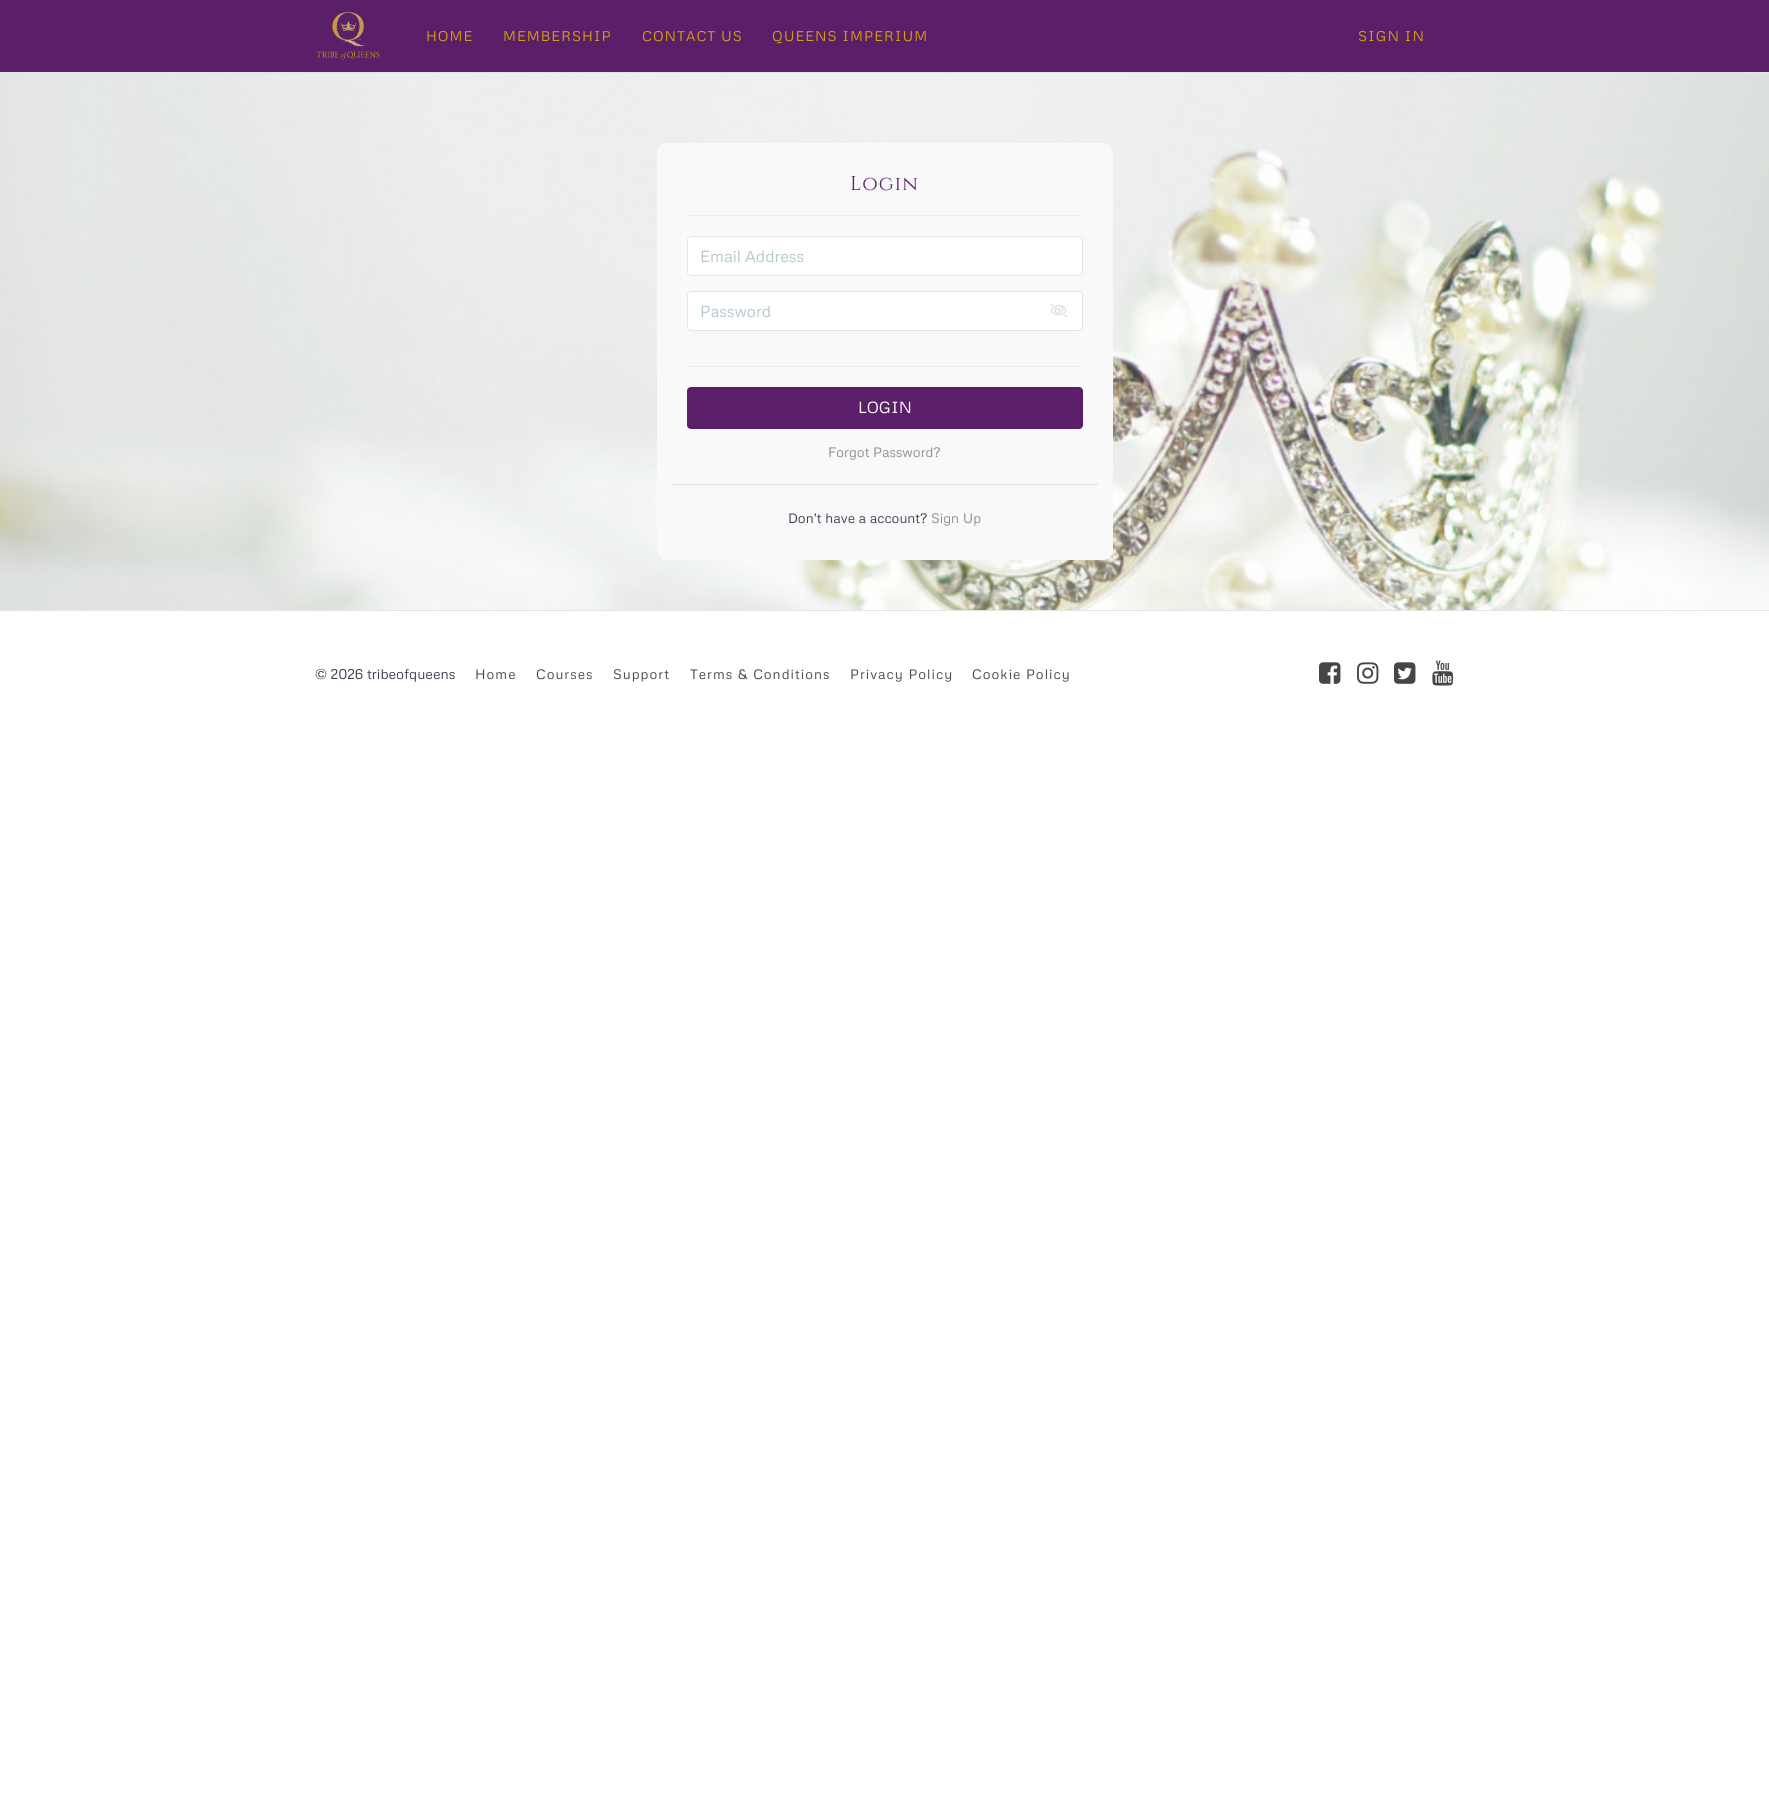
import math
import cairo

surface = cairo.ImageSurface(cairo.Format.RGB24, 1769, 1809)
ctx = cairo.Context(surface)
options = cairo.FontOptions()
options.set_hint_metrics(cairo.HintMetrics.OFF)
options.set_hint_style(cairo.HintStyle.NONE)
ctx.set_font_options(options)
ctx.set_miter_limit(4)


def ink(r, g, b):
    ctx.set_source_rgb(r / 255, g / 255, b / 255)


def write(x, y, s, family, size, color, bold=False, italic=False):
    ctx.select_font_face(family, cairo.FontSlant.ITALIC if italic else cairo.FontSlant.NORMAL, cairo.FontWeight.BOLD if bold else cairo.FontWeight.NORMAL)
    ctx.set_font_size(size)
    ink(*color)
    ctx.move_to(x, y)
    ctx.show_text(s)


def write_spaced(x, y, s, letter, word):
    ctx.move_to(x, y)
    for ch in s:
        ctx.show_text(ch)
        ctx.rel_move_to(letter + word * (ch == ' '), 0)


def block(x, y, w, h, *color):
    ink(*color)
    ctx.rectangle(x, y, w, h)
    ctx.fill()


def round_path(x, y, w, h, r):
    ctx.new_sub_path()
    for i, (u, v) in enumerate([(x + w - r, y + h - r), (x + r, y + h - r), (x + r, y + r), (x + w - r, y + r)]):
        ctx.arc(u, v, r, i * math.pi / 2, (i + 1) * math.pi / 2)
    ctx.close_path()


def paste(path, x, y, w, h):
    ctx.save()
    ctx.set_source_surface(cairo.ImageSurface.create_from_png(path), x, y)
    ctx.rectangle(x, y, w, h)
    ctx.fill()
    ctx.restore()


s1 = dict(family="Metrophobic", size=16, color=(178, 198, 205))
s2 = dict(family="Metrophobic", size=16, color=(255, 255, 255))
s3 = dict(family="Metrophobic", size=13.6, color=(139, 139, 139))
s4 = dict(family="Metrophobic", size=13.6, color=(56, 63, 78))
s5 = dict(family="Metrophobic", size=14, color=(56, 63, 78))

ink(255, 255, 255)
ctx.paint()
block(0, 72, 1769, 1, 228, 228, 228)
block(0, 0, 1769, 72, 91, 31, 105)
paste("pic1.png", 316, 11, 64, 49)
ctx.select_font_face("Metrophobic")
ctx.set_font_size(14)
ink(209, 158, 18)
write_spaced(426, 41, "HOME", 1, 0)
write_spaced(503, 41, "MEMBERSHIP", 1, 0)
write_spaced(642, 41, "CONTACT US", 1, 0)
write_spaced(772, 41, "QUEENS IMPERIUM", 1, 0)
write_spaced(1358, 41, "SIGN IN", 1, 0)
paste("pic2.png", 0, 73, 1769, 537)
ink(249, 249, 249)
round_path(657, 143, 456, 417, 10)
ctx.fill()
ctx.select_font_face("Cinzel")
ctx.set_font_size(20)
ink(91, 31, 105)
write_spaced(850, 190, "Login", 1, 0)
block(687, 215, 396, 1, 238, 238, 238)
ink(255, 255, 255)
round_path(687.5, 236.5, 395, 39, 3.5)
ctx.fill_preserve()
ink(228, 228, 228)
ctx.set_line_width(1)
ctx.stroke()
write(700, 262, "Email Address", **s1)
ink(255, 255, 255)
round_path(687.5, 291.5, 395, 39, 3.5)
ctx.fill_preserve()
ink(228, 228, 228)
ctx.stroke()
write(700, 317, "Password", **s1)
paste("pic3.png", 1050, 303, 18, 14)
block(687, 366, 396, 1, 238, 238, 238)
ink(91, 31, 105)
round_path(687.5, 387.5, 395, 41, 3.5)
ctx.fill_preserve()
ctx.stroke()
write(858, 413, "LOGIN", **s2)
write(828, 457, "Forgot Password?", **s3)
block(672, 484, 426, 1, 214, 225, 229)
write(788, 523, "Don't have a account?", **s4)
write(931, 523, "Sign Up", **s3)
block(0, 610, 1769, 1, 228, 228, 228)
write(315, 679, "© 2026 tribeofqueens", **s5)
ctx.set_font_size(13.6)
ink(70, 70, 70)
write_spaced(475, 679, "Home", 1, 0)
write_spaced(536, 679, "Courses", 1, 0)
write_spaced(613, 679, "Support", 1, 0)
write_spaced(690, 679, "Terms & Conditions", 1, 0)
write_spaced(850, 679, "Privacy Policy", 1, 0)
write_spaced(972, 679, "Cookie Policy", 1, 0)
paste("pic4.png", 1319, 662, 22, 22)
paste("pic5.png", 1357, 662, 22, 22)
paste("pic6.png", 1394, 662, 22, 22)
paste("pic7.png", 1432, 660, 22, 26)
surface.write_to_png("screenshot.png")
